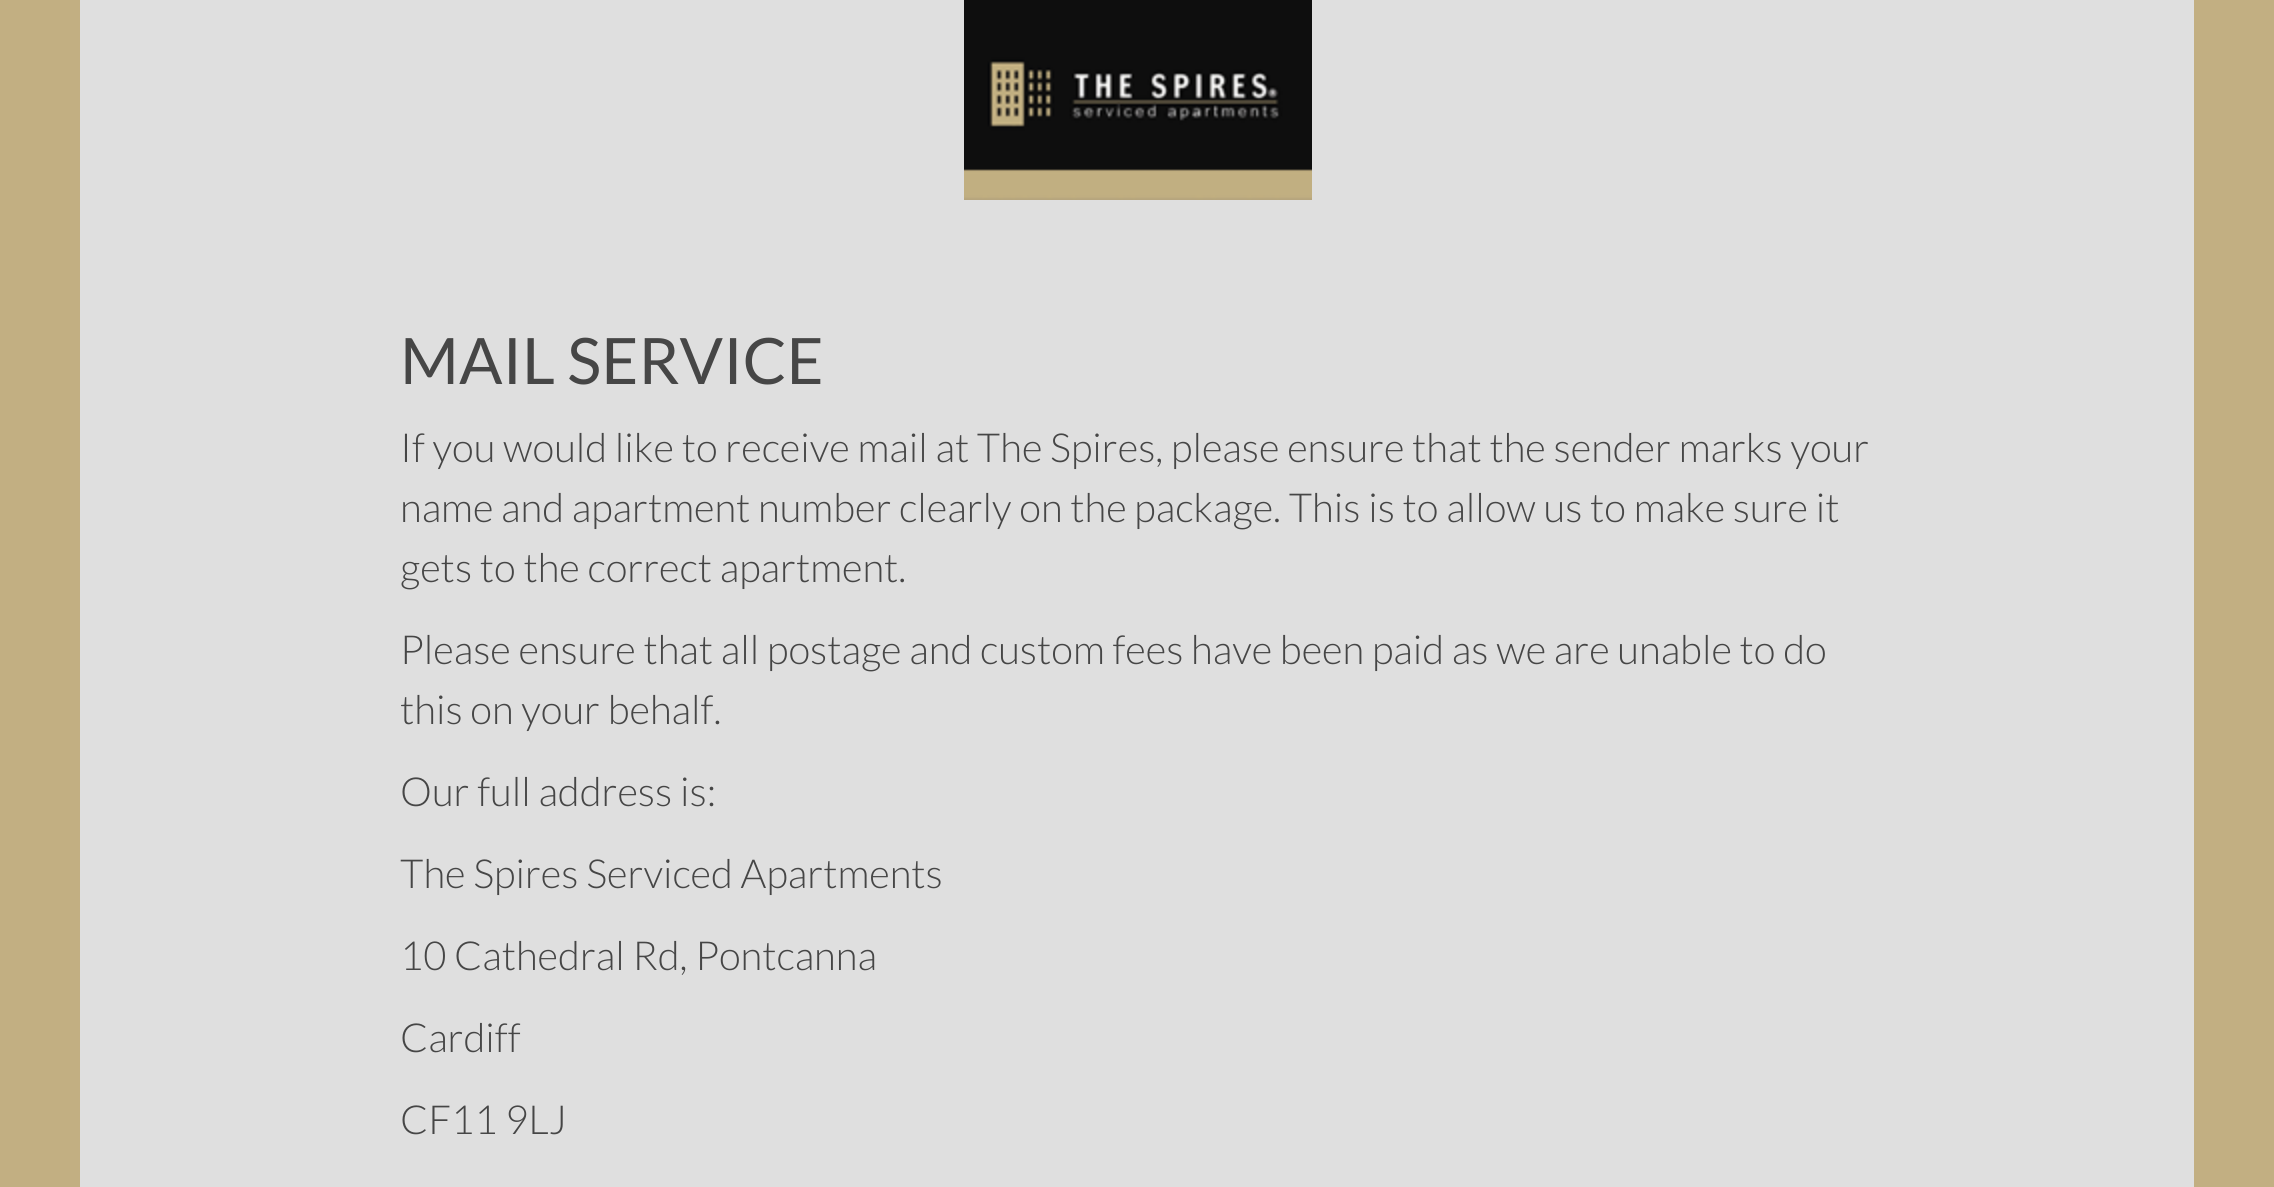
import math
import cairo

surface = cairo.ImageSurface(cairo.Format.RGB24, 2274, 1187)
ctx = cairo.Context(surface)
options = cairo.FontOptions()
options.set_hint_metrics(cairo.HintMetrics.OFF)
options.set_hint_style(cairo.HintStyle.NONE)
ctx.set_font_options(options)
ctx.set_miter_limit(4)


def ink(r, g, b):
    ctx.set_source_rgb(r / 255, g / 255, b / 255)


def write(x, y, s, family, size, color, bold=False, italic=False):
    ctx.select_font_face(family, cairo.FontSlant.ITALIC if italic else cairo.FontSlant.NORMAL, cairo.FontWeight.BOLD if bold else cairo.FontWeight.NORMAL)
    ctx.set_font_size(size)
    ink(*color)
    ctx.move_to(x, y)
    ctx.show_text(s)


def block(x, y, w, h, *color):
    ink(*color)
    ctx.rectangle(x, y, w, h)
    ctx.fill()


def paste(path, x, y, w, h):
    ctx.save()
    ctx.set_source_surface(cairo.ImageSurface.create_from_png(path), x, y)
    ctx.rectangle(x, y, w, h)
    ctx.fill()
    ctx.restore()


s1 = dict(family="Lato", size=64, color=(70, 70, 70))
s2 = dict(family="Lato Light", size=40, color=(70, 70, 70))

ink(223, 223, 223)
ctx.paint()
block(2194, 0, 80, 1187, 194, 175, 130)
block(0, 0, 80, 1187, 194, 175, 130)
paste("pic1.png", 964, 0, 348, 200)
write(400, 384, "MAIL SERVICE", **s1)
write(400, 462, "If you would like to receive mail at The Spires, please ensure that the sender marks your", **s2)
write(400, 522, "name and apartment number clearly on the package. This is to allow us to make sure it", **s2)
write(400, 582, "gets to the correct apartment.", **s2)
write(400, 664, "Please ensure that all postage and custom fees have been paid as we are unable to do", **s2)
write(400, 724, "this on your behalf.", **s2)
write(400, 806, "Our full address is:", **s2)
write(400, 888, "The Spires Serviced Apartments", **s2)
write(400, 970, "10 Cathedral Rd, Pontcanna", **s2)
write(400, 1052, "Cardiff", **s2)
write(400, 1134, "CF11 9LJ", **s2)
surface.write_to_png("screenshot.png")
